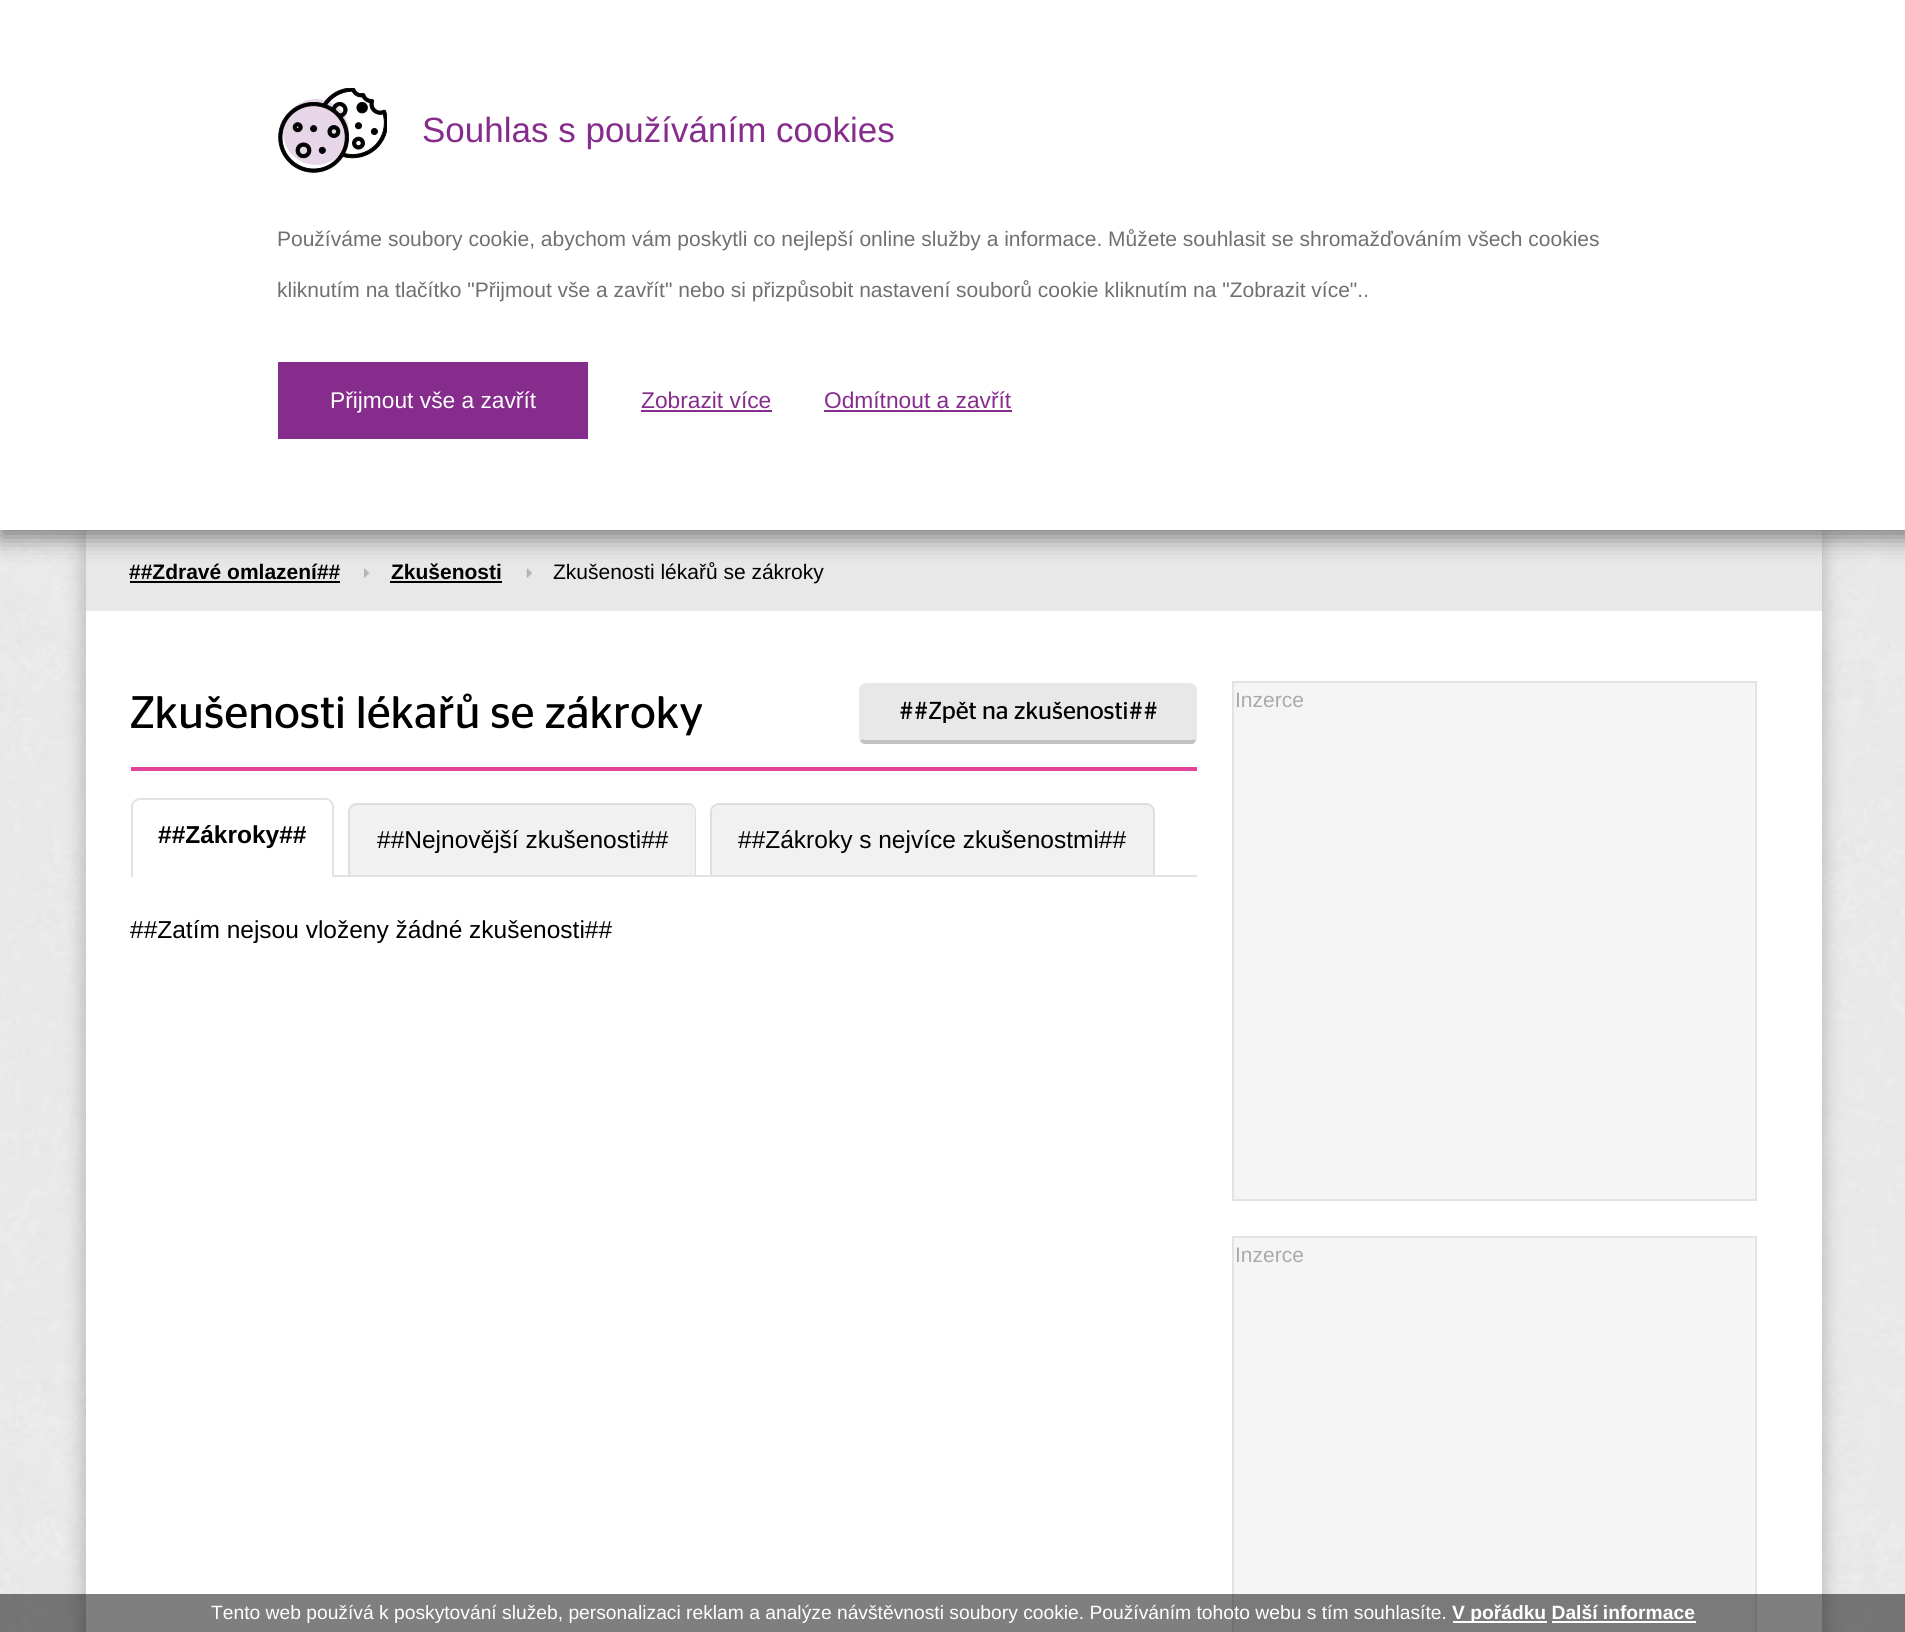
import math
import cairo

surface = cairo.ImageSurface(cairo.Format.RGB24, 1905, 1632)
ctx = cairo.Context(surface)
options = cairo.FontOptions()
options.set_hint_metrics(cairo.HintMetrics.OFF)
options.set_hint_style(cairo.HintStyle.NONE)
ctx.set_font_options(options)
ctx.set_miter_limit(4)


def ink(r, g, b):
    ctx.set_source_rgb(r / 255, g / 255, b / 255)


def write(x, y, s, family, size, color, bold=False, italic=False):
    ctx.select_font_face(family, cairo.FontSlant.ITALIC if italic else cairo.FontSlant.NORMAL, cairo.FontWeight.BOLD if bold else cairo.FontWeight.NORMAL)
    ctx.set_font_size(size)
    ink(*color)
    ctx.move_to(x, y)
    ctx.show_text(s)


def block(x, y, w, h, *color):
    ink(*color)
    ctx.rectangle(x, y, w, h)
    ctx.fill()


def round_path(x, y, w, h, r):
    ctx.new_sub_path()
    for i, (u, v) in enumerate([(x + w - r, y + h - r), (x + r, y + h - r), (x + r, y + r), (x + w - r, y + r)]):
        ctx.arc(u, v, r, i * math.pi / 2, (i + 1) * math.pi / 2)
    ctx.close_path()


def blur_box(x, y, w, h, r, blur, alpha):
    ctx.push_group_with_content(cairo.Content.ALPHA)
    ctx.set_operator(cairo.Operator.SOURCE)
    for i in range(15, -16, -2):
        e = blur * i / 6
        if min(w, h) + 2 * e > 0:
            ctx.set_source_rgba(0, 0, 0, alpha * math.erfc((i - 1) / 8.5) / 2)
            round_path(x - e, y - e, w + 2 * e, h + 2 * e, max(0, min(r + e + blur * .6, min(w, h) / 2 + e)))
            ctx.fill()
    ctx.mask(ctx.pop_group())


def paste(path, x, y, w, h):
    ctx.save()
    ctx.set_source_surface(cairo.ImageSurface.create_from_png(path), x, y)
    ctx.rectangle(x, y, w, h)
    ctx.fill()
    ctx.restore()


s1 = dict(family="Liberation Sans", size=35, color=(134, 44, 141))
s2 = dict(family="Liberation Sans", size=21, color=(112, 112, 112))
s3 = dict(family="Liberation Sans", size=22.75, color=(255, 255, 255))
s4 = dict(family="Liberation Sans", size=22.75, color=(134, 44, 141))
s5 = dict(family="Liberation Sans", size=21, color=(0, 0, 0), bold=True)
s6 = dict(family="Liberation Sans", size=21, color=(0, 0, 0))
s7 = dict(family="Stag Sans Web", size=45.5, color=(0, 0, 0))
s8 = dict(family="Stag Sans Web", size=24.5, color=(0, 0, 0))
s9 = dict(family="Liberation Sans", size=24.5, color=(0, 0, 0), bold=True)
s10 = dict(family="Liberation Sans", size=24.5, color=(0, 0, 0))
s11 = dict(family="Liberation Sans", size=21, color=(170, 170, 170))
s12 = dict(family="Liberation Sans", size=19.25, color=(255, 255, 255))
s13 = dict(family="Liberation Sans", size=19.25, color=(255, 255, 255), bold=True)

ink(255, 255, 255)
ctx.paint()
paste("pic1.png", 0, 530, 1905, 1102)
ink(0, 0, 0)
blur_box(82, -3, 1743, 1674, 12, 9, 0.2)
block(86, 530, 1736, 81, 232, 232, 232)
paste("pic3.png", 364, 568, 6, 10)
paste("pic4.png", 526, 568, 6, 10)
ink(116, 116, 116)
blur_box(0, 0, 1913, 537, 0, 12, 1)
block(0, 0, 1905, 530, 255, 255, 255)
paste("pic2.png", 278, 88, 109, 85)
write(422, 142, "Souhlas s používáním cookies", **s1)
write(277, 246, "Používáme soubory cookie, abychom vám poskytli co nejlepší online služby a informace. Můžete souhlasit se shromažďováním všech cookies", **s2)
write(277, 297, "kliknutím na tlačítko \"Přijmout vše a zavřít\" nebo si přizpůsobit nastavení souborů cookie kliknutím na \"Zobrazit více\"..", **s2)
block(278, 362, 310, 77, 134, 44, 141)
write(330, 408, "Přijmout vše a zavřít", **s3)
write(641, 408, "Zobrazit více", **s4)
block(641, 410, 131, 2, 134, 44, 141)
write(824, 408, "Odmítnout a zavřít", **s4)
block(824, 410, 188, 2, 134, 44, 141)
block(86, 611, 1736, 1021, 255, 255, 255)
write(129, 579, "##Zdravé omlazení##", **s5)
block(130, 581, 210, 2, 0, 0, 0)
write(391, 579, "Zkušenosti", **s5)
block(390, 581, 112, 2, 0, 0, 0)
write(553, 579, "Zkušenosti lékařů se zákroky", **s6)
block(131, 767, 1066, 4, 226, 66, 152)
write(130, 728, "Zkušenosti lékařů se zákroky", **s7)
ink(232, 232, 232)
round_path(859, 683, 338, 61, 7)
ctx.fill()
ink(194, 194, 194)
ctx.new_path()
ctx.move_to(864, 744)
ctx.curve_to(863, 743, 861, 743, 860, 741)
ctx.line_to(862, 739)
ctx.curve_to(863, 740, 864, 740, 866, 740)
ctx.line_to(1190, 740)
ctx.curve_to(1192, 740, 1194, 740, 1194, 739)
ctx.line_to(1196, 741)
ctx.line_to(1193, 744)
ctx.close_path()
ctx.fill()
write(899, 719, "##Zpět na zkušenosti##", **s8)
block(334, 875, 863, 2, 227, 227, 227)
ink(226, 226, 226)
ctx.set_fill_rule(cairo.FillRule.EVEN_ODD)
ctx.new_path()
ctx.move_to(140, 798)
ctx.line_to(326, 798)
ctx.curve_to(330, 798, 334, 802, 334, 807)
ctx.line_to(334, 877)
ctx.line_to(131, 877)
ctx.line_to(131, 807)
ctx.curve_to(131, 802, 135, 798, 140, 798)
ctx.close_path()
ctx.move_to(140, 800)
ctx.line_to(326, 800)
ctx.curve_to(329, 800, 332, 803, 332, 807)
ctx.line_to(332, 877)
ctx.line_to(133, 877)
ctx.line_to(133, 807)
ctx.curve_to(133, 803, 136, 800, 140, 800)
ctx.close_path()
ctx.fill()
write(158, 843, "##Zákroky##", **s9)
ink(241, 241, 241)
ctx.new_path()
ctx.move_to(357, 805)
ctx.line_to(688, 805)
ctx.curve_to(692, 805, 695, 808, 695, 812)
ctx.line_to(695, 875)
ctx.line_to(350, 875)
ctx.line_to(350, 812)
ctx.curve_to(350, 808, 353, 805, 357, 805)
ctx.close_path()
ctx.fill()
ink(222, 222, 222)
ctx.new_path()
ctx.move_to(357, 803)
ctx.line_to(688, 803)
ctx.curve_to(693, 803, 696, 807, 696, 812)
ctx.line_to(696, 875)
ctx.line_to(348, 875)
ctx.line_to(348, 812)
ctx.curve_to(348, 807, 352, 803, 357, 803)
ctx.close_path()
ctx.move_to(357, 805)
ctx.line_to(688, 805)
ctx.curve_to(692, 805, 695, 808, 695, 812)
ctx.line_to(695, 875)
ctx.line_to(350, 875)
ctx.line_to(350, 812)
ctx.curve_to(350, 808, 353, 805, 357, 805)
ctx.close_path()
ctx.fill()
write(377, 848, "##Nejnovější zkušenosti##", **s10)
ink(241, 241, 241)
ctx.new_path()
ctx.move_to(719, 805)
ctx.line_to(1146, 805)
ctx.curve_to(1150, 805, 1153, 808, 1153, 812)
ctx.line_to(1153, 875)
ctx.line_to(712, 875)
ctx.line_to(712, 812)
ctx.curve_to(712, 808, 715, 805, 719, 805)
ctx.close_path()
ctx.fill()
ink(222, 222, 222)
ctx.new_path()
ctx.move_to(719, 803)
ctx.line_to(1146, 803)
ctx.curve_to(1151, 803, 1155, 807, 1155, 812)
ctx.line_to(1155, 875)
ctx.line_to(710, 875)
ctx.line_to(710, 812)
ctx.curve_to(710, 807, 714, 803, 719, 803)
ctx.close_path()
ctx.move_to(719, 805)
ctx.line_to(1146, 805)
ctx.curve_to(1150, 805, 1153, 808, 1153, 812)
ctx.line_to(1153, 875)
ctx.line_to(712, 875)
ctx.line_to(712, 812)
ctx.curve_to(712, 808, 715, 805, 719, 805)
ctx.close_path()
ctx.fill()
write(738, 848, "##Zákroky s nejvíce zkušenostmi##", **s10)
write(130, 938, "##Zatím nejsou vloženy žádné zkušenosti##", **s10)
ink(245, 245, 245)
ctx.rectangle(1233, 682, 523, 518)
ctx.fill_preserve()
ink(227, 227, 227)
ctx.stroke()
write(1235, 707, "Inzerce", **s11)
ink(245, 245, 245)
ctx.rectangle(1233, 1237, 523, 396)
ctx.fill_preserve()
ink(227, 227, 227)
ctx.stroke()
write(1235, 1262, "Inzerce", **s11)
ctx.set_source_rgba(0, 0, 0, 0.5)
ctx.rectangle(0, 1594, 1905, 38)
ctx.fill()
write(211, 1619, "Tento web používá k poskytování služeb, personalizaci reklam a analýze návštěvnosti soubory cookie. Používáním tohoto webu s tím souhlasíte.", **s12)
block(1453, 1621, 94, 2, 255, 255, 255)
write(1452, 1619, "V pořádku Další informace", **s13)
block(1552, 1621, 144, 2, 255, 255, 255)
surface.write_to_png("screenshot.png")
